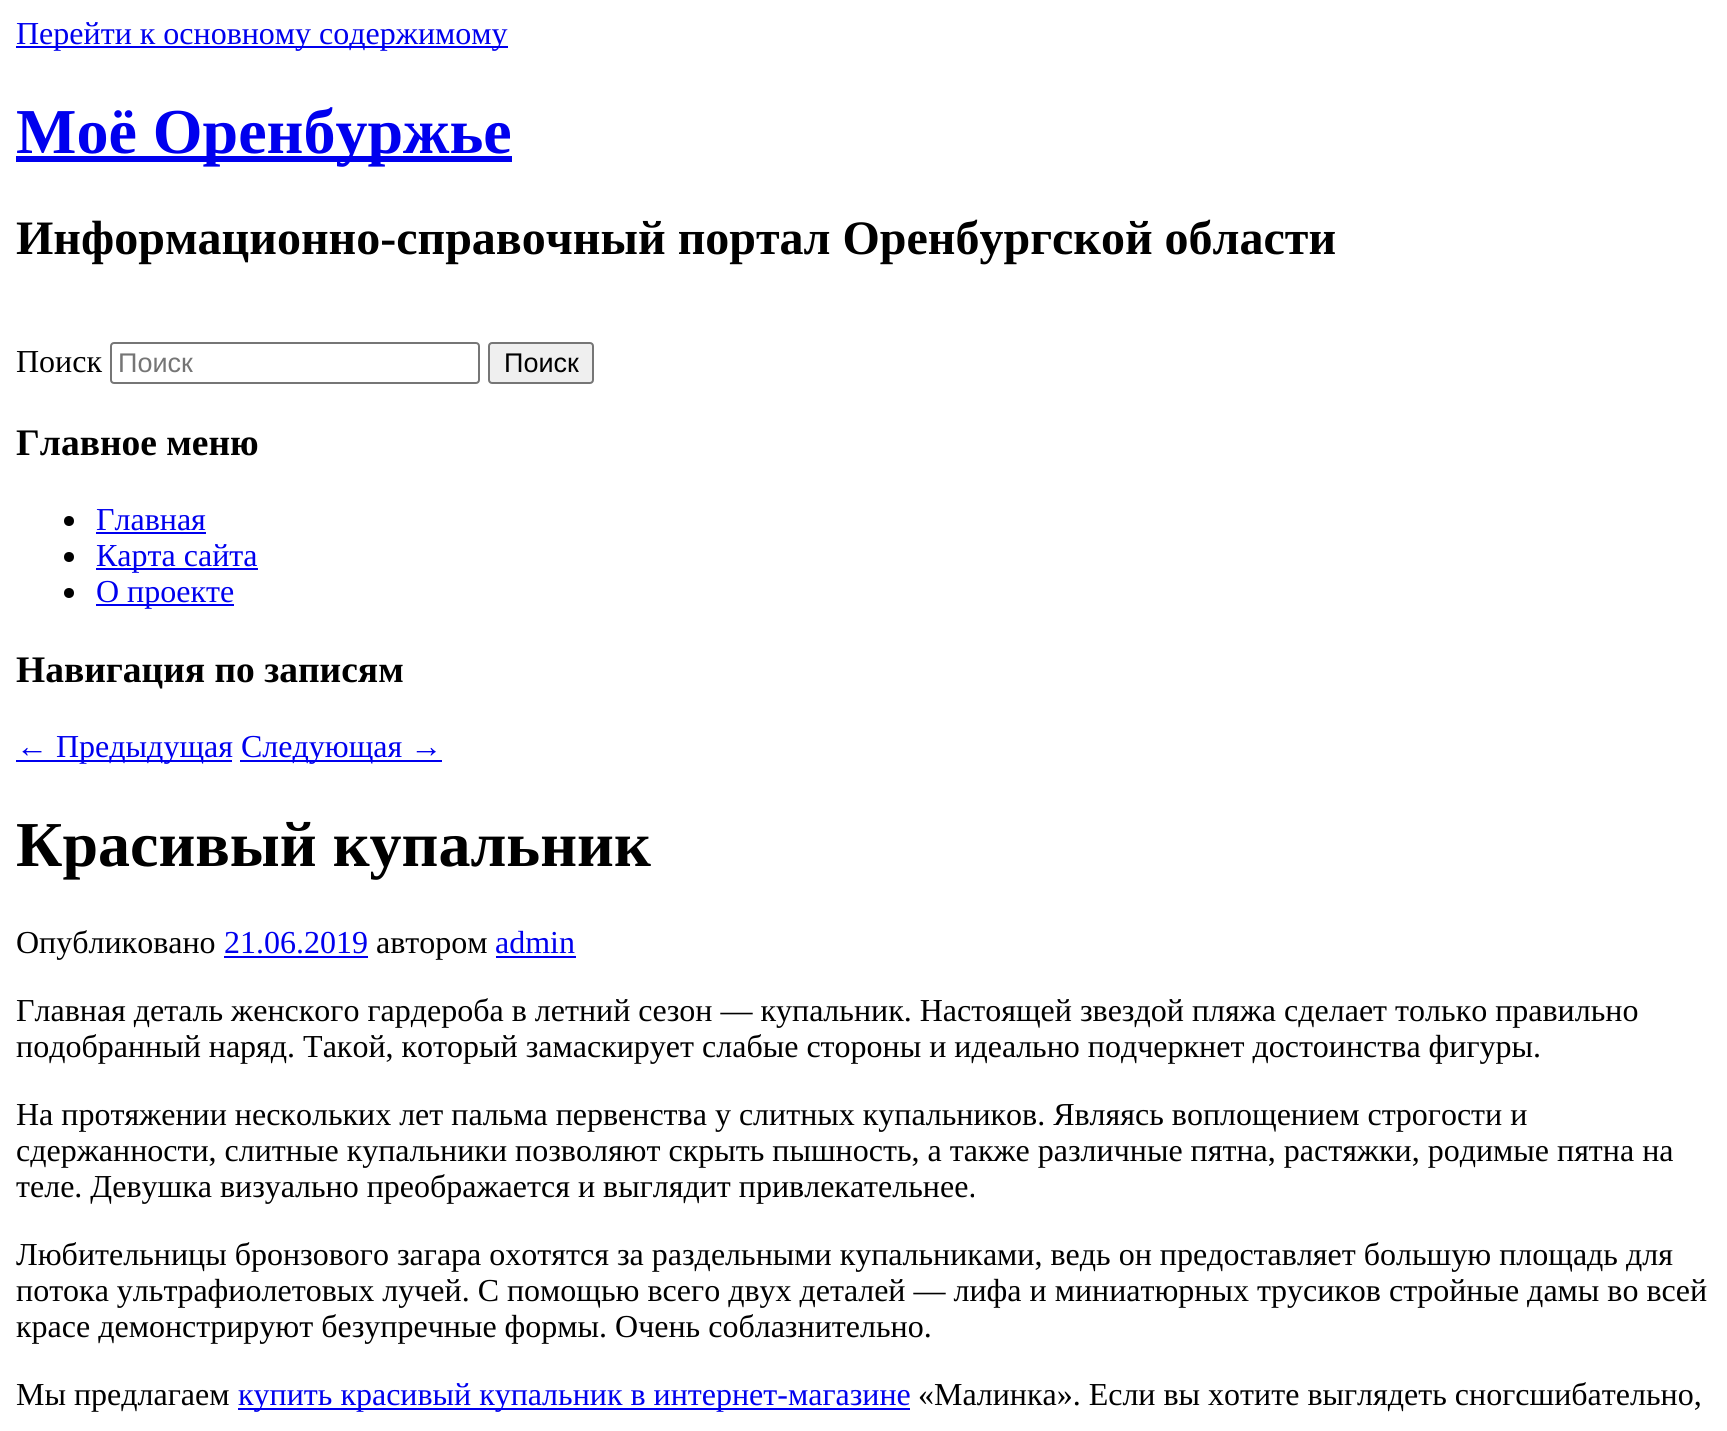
import math
import cairo

surface = cairo.ImageSurface(cairo.Format.RGB24, 1727, 1431)
ctx = cairo.Context(surface)
options = cairo.FontOptions()
options.set_hint_metrics(cairo.HintMetrics.OFF)
options.set_hint_style(cairo.HintStyle.NONE)
ctx.set_font_options(options)
ctx.set_miter_limit(4)


def ink(r, g, b):
    ctx.set_source_rgb(r / 255, g / 255, b / 255)


def write(x, y, s, family, size, color, bold=False, italic=False):
    ctx.select_font_face(family, cairo.FontSlant.ITALIC if italic else cairo.FontSlant.NORMAL, cairo.FontWeight.BOLD if bold else cairo.FontWeight.NORMAL)
    ctx.set_font_size(size)
    ink(*color)
    ctx.move_to(x, y)
    ctx.show_text(s)


def block(x, y, w, h, *color):
    ink(*color)
    ctx.rectangle(x, y, w, h)
    ctx.fill()


def round_path(x, y, w, h, r):
    ctx.new_sub_path()
    for i, (u, v) in enumerate([(x + w - r, y + h - r), (x + r, y + h - r), (x + r, y + r), (x + w - r, y + r)]):
        ctx.arc(u, v, r, i * math.pi / 2, (i + 1) * math.pi / 2)
    ctx.close_path()


s1 = dict(family="Liberation Serif", size=32, color=(0, 0, 238))
s2 = dict(family="Liberation Serif", size=64, color=(0, 0, 238), bold=True)
s3 = dict(family="Liberation Serif", size=48, color=(0, 0, 0), bold=True)
s4 = dict(family="Liberation Serif", size=32, color=(0, 0, 0))
s5 = dict(family="Liberation Sans", size=27, color=(117, 117, 117))
s6 = dict(family="Liberation Sans", size=27, color=(0, 0, 0))
s7 = dict(family="Liberation Serif", size=37.5, color=(0, 0, 0), bold=True)
s8 = dict(family="Liberation Serif", size=64, color=(0, 0, 0), bold=True)

ink(255, 255, 255)
ctx.paint()
block(16, 46, 492, 2, 0, 0, 238)
write(16, 44, "Перейти к основному содержимому", **s1)
block(16, 156, 496, 6, 0, 0, 238)
write(16, 153, "Моё Оренбуржье", **s2)
write(16, 254, "Информационно-справочный портал Оренбургской области", **s3)
write(16, 372, "Поиск", **s4)
round_path(111, 343, 368, 40, 3)
ink(118, 118, 118)
ctx.stroke()
write(118, 372, "Поиск", **s5)
ink(239, 239, 239)
round_path(489, 343, 104, 40, 3)
ctx.fill_preserve()
ink(118, 118, 118)
ctx.stroke()
write(504, 372, "Поиск", **s6)
write(16, 455, "Главное меню", **s7)
ctx.new_path()
ctx.arc(69, 521, 5, 0, 2 * math.pi)
ctx.fill()
write(96, 530, "Главная", **s1)
block(96, 532, 110, 2, 0, 0, 238)
ink(0, 0, 0)
ctx.new_path()
ctx.arc(69, 557, 5, 0, 2 * math.pi)
ctx.fill()
block(96, 568, 162, 2, 0, 0, 238)
write(96, 566, "Карта сайта", **s1)
ink(0, 0, 0)
ctx.new_path()
ctx.arc(69, 593, 5, 0, 2 * math.pi)
ctx.fill()
block(96, 604, 138, 2, 0, 0, 238)
write(96, 602, "О проекте", **s1)
write(16, 682, "Навигация по записям", **s7)
block(16, 760, 216, 2, 0, 0, 238)
write(16, 757, "← Предыдущая", **s1)
block(240, 760, 202, 2, 0, 0, 238)
write(241, 757, "Следующая →", **s1)
write(16, 866, "Красивый купальник", **s8)
write(16, 953, "Опубликовано", **s4)
write(224, 953, "21.06.2019", **s1)
block(224, 956, 144, 2, 0, 0, 238)
write(376, 953, "автором", **s4)
block(496, 956, 80, 2, 0, 0, 238)
write(495, 953, "admin", **s1)
write(16, 1021, "Главная деталь женского гардероба в летний сезон — купальник. Настоящей звездой пляжа сделает только правильно", **s4)
write(16, 1057, "подобранный наряд. Такой, который замаскирует слабые стороны и идеально подчеркнет достоинства фигуры.", **s4)
write(16, 1125, "На протяжении нескольких лет пальма первенства у слитных купальников. Являясь воплощением строгости и", **s4)
write(16, 1161, "сдержанности, слитные купальники позволяют скрыть пышность, а также различные пятна, растяжки, родимые пятна на", **s4)
write(16, 1197, "теле. Девушка визуально преображается и выглядит привлекательнее.", **s4)
write(16, 1265, "Любительницы бронзового загара охотятся за раздельными купальниками, ведь он предоставляет большую площадь для", **s4)
write(16, 1301, "потока ультрафиолетовых лучей. С помощью всего двух деталей — лифа и миниатюрных трусиков стройные дамы во всей", **s4)
write(16, 1337, "красе демонстрируют безупречные формы. Очень соблазнительно.", **s4)
write(16, 1405, "Мы предлагаем", **s4)
block(238, 1408, 672, 2, 0, 0, 238)
write(238, 1405, "купить красивый купальник в интернет-магазине", **s1)
write(918, 1405, "«Малинка». Если вы хотите выглядеть сногсшибательно,", **s4)
surface.write_to_png("screenshot.png")
